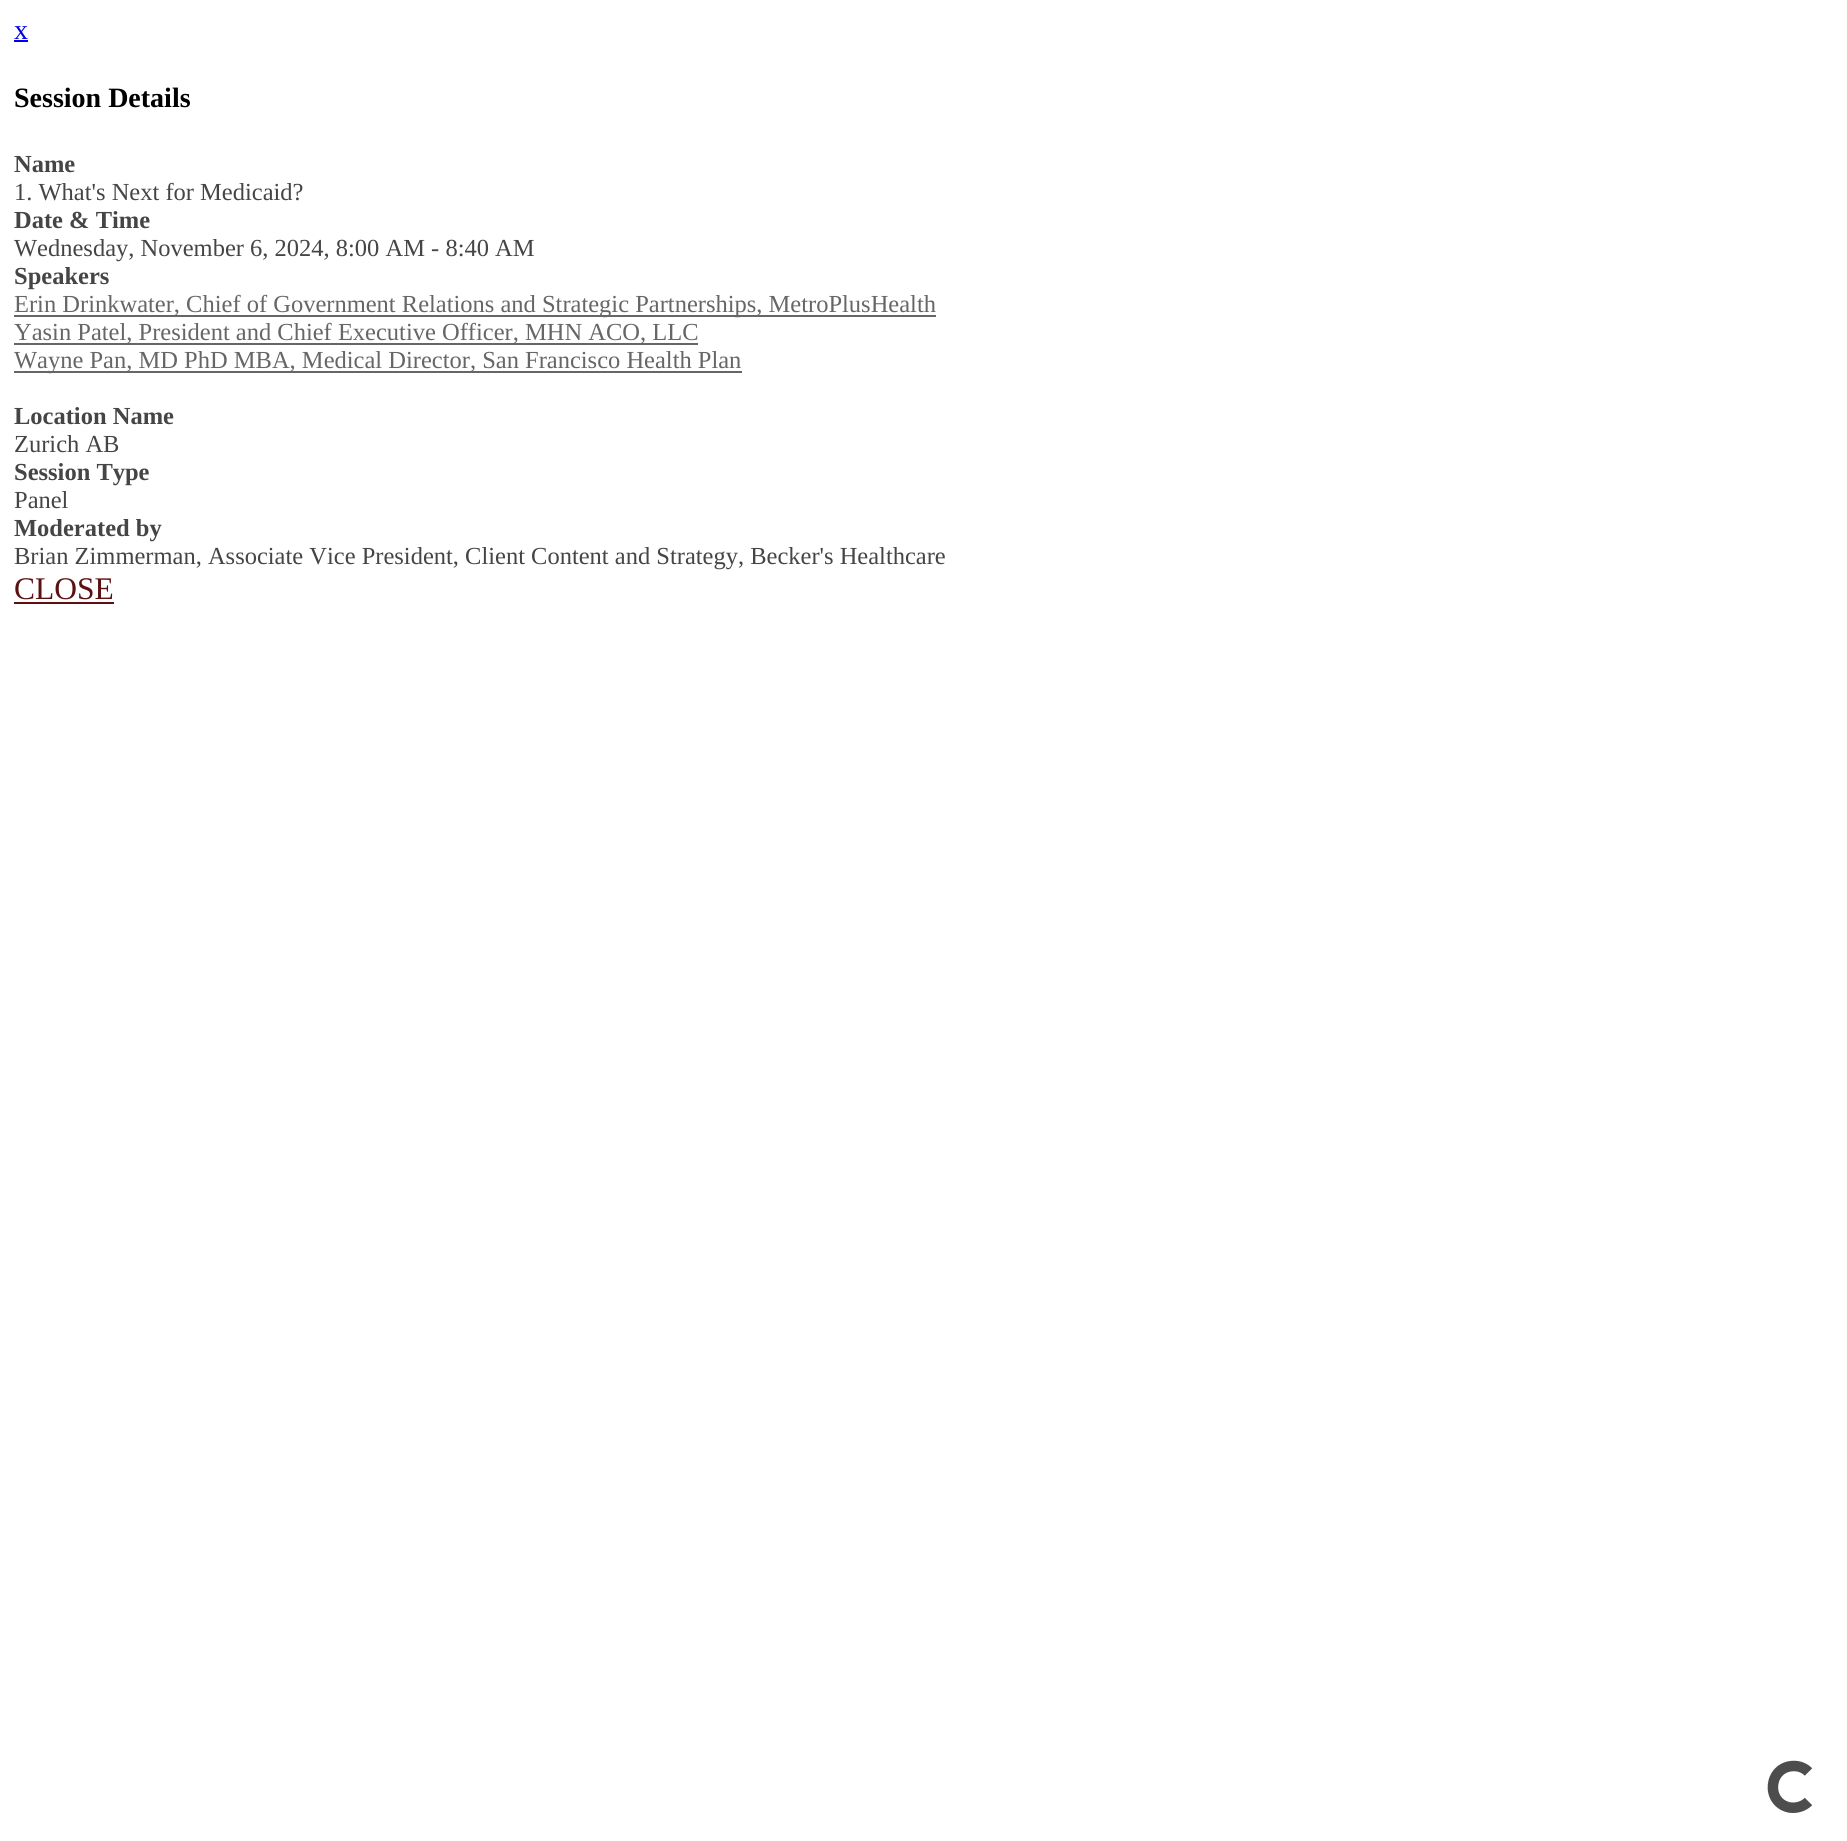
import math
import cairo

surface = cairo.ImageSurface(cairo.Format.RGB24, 1847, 1841)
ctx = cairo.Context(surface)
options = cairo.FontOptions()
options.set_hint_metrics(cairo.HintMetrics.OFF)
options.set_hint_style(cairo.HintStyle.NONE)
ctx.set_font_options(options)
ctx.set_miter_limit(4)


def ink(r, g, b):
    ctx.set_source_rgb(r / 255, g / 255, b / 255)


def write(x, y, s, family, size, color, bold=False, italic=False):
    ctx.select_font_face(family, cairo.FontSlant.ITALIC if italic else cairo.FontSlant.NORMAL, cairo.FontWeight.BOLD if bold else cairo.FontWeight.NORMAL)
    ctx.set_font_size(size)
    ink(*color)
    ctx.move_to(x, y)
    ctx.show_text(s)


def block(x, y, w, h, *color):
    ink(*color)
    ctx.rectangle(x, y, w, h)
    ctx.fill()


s1 = dict(family="Liberation Serif", size=28, color=(0, 0, 238))
s2 = dict(family="Liberation Serif", size=28, color=(0, 0, 0), bold=True)
s3 = dict(family="Liberation Serif", size=24.5, color=(69, 69, 69), bold=True)
s4 = dict(family="Liberation Serif", size=24.5, color=(69, 69, 69))
s5 = dict(family="Liberation Serif", size=24.5, color=(102, 102, 102))
s6 = dict(family="Liberation Serif", size=31.5, color=(92, 16, 18))

ink(255, 255, 255)
ctx.paint()
write(14, 39, "x", **s1)
block(14, 40, 14, 2, 0, 0, 238)
write(14, 107, "Session Details", **s2)
write(14, 172, "Name", **s3)
write(14, 200, "1. What's Next for Medicaid?", **s4)
write(14, 228, "Date & Time", **s3)
write(14, 256, "Wednesday, November 6, 2024, 8:00 AM - 8:40 AM", **s4)
write(14, 284, "Speakers", **s3)
block(14, 315, 922, 2, 102, 102, 102)
write(14, 312, "Erin Drinkwater, Chief of Government Relations and Strategic Partnerships, MetroPlusHealth", **s5)
block(14, 343, 684, 2, 102, 102, 102)
write(14, 340, "Yasin Patel, President and Chief Executive Officer, MHN ACO, LLC", **s5)
block(14, 371, 728, 2, 102, 102, 102)
write(14, 368, "Wayne Pan, MD PhD MBA, Medical Director, San Francisco Health Plan", **s5)
write(14, 424, "Location Name", **s3)
write(14, 452, "Zurich AB", **s4)
write(14, 480, "Session Type", **s3)
write(14, 508, "Panel", **s4)
write(14, 536, "Moderated by", **s3)
write(14, 564, "Brian Zimmerman, Associate Vice President, Client Content and Strategy, Becker's Healthcare", **s4)
write(14, 599, "CLOSE", **s6)
block(14, 602, 100, 2, 92, 16, 18)
ctx.new_path()
ctx.move_to(1808.5, 1801.5)
ctx.curve_to(1803.5, 1806.5, 1796.5, 1808.5, 1789.5, 1807.5)
ctx.curve_to(1765, 1802.5, 1768.5, 1766, 1794, 1766)
ctx.curve_to(1799.5, 1766, 1804.5, 1768, 1808.5, 1772)
ink(77, 77, 77)
ctx.set_line_width(10.5)
ctx.stroke()
surface.write_to_png("screenshot.png")
